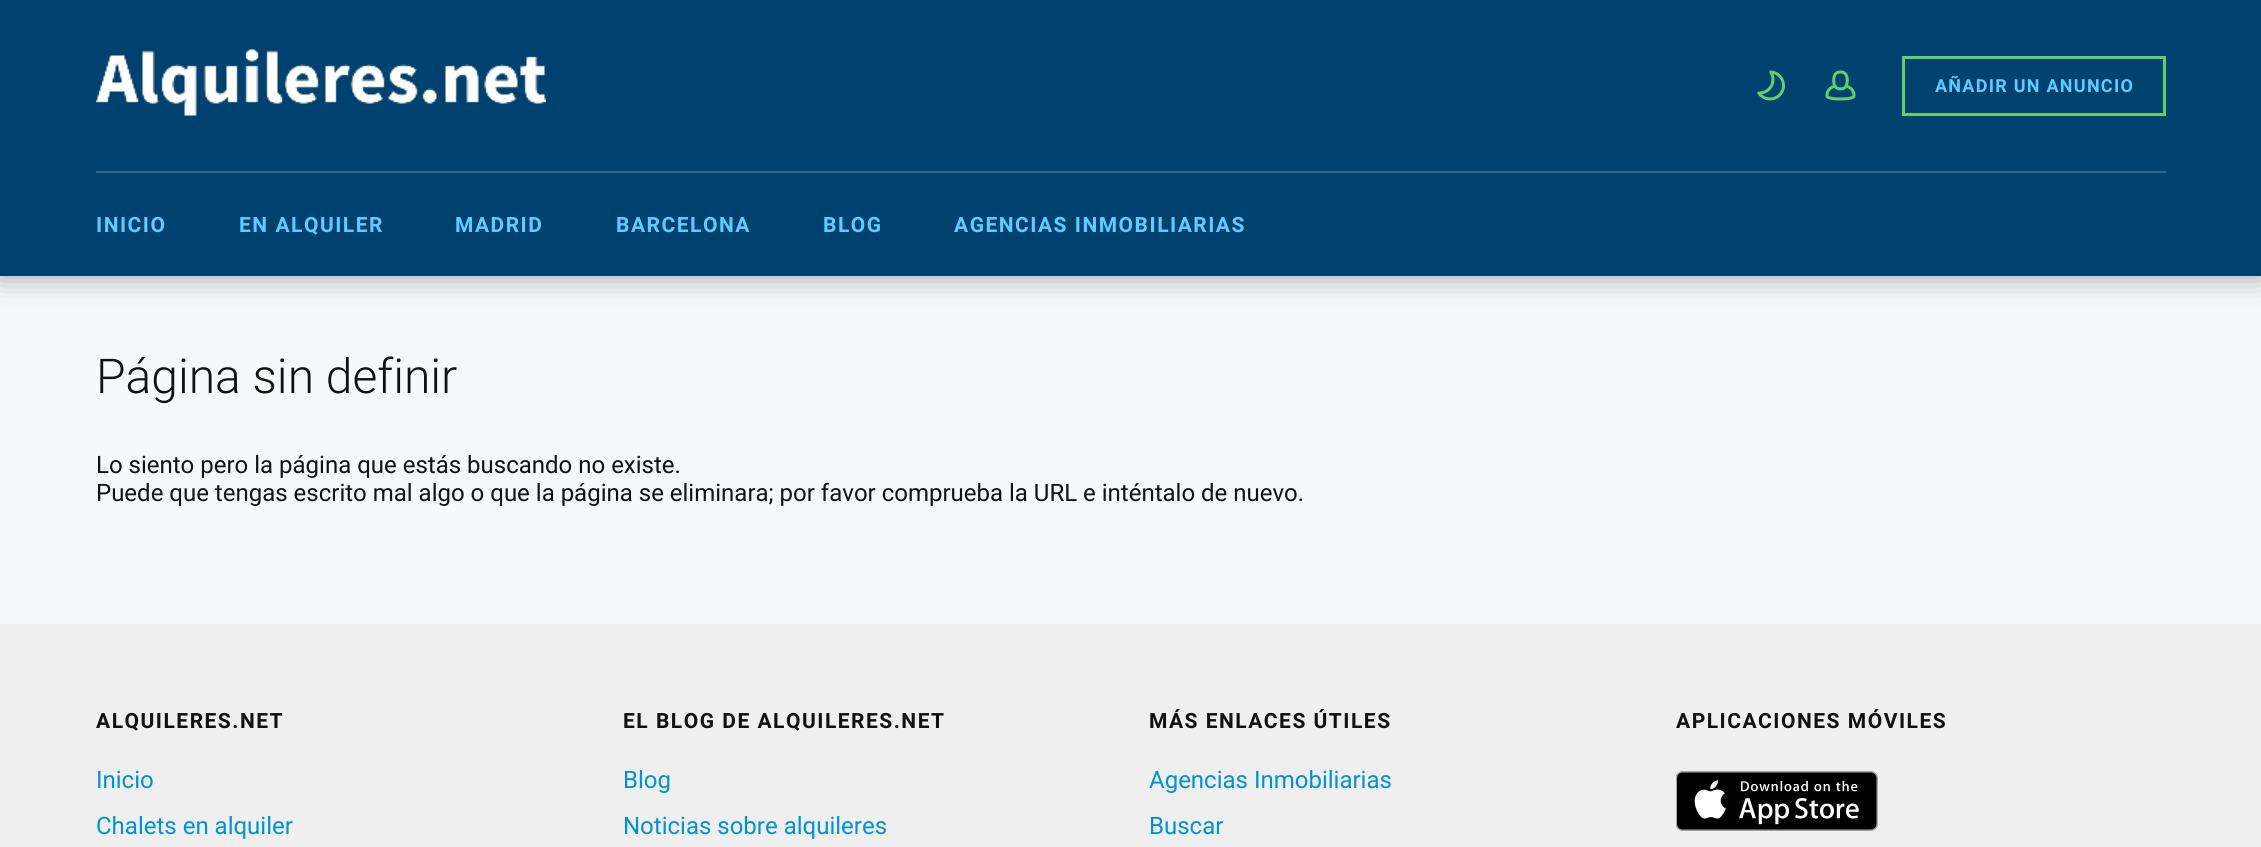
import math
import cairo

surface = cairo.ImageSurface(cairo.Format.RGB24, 2261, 847)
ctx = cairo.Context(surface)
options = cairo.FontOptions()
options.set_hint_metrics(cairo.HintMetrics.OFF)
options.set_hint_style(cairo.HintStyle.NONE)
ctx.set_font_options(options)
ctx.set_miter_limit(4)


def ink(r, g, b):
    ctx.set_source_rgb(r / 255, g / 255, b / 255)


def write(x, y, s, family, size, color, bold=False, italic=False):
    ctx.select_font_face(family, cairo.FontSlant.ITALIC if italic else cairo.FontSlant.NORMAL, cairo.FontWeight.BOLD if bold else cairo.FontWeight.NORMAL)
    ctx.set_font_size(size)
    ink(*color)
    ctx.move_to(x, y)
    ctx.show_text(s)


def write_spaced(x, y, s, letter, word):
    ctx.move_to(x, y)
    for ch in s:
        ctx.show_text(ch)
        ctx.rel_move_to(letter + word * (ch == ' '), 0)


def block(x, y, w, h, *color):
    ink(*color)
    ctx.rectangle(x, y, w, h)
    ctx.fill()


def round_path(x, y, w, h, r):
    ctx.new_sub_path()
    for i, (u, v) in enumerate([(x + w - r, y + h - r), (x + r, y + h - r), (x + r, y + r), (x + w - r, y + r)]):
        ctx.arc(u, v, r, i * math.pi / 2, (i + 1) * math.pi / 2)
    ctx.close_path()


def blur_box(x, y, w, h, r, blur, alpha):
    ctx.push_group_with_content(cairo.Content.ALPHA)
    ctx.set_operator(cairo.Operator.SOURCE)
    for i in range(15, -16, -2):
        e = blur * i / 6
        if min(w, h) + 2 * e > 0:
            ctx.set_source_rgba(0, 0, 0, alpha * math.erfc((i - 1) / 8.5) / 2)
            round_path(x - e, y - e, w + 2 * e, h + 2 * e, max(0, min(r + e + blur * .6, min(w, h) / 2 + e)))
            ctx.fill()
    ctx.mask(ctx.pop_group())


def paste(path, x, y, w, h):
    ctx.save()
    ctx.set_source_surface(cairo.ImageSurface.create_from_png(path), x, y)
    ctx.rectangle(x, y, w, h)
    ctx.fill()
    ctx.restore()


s1 = dict(family="Roboto Light", size=48, color=(17, 17, 17))
s2 = dict(family="Roboto", size=24, color=(17, 17, 17))
s3 = dict(family="Roboto", size=24, color=(0, 146, 214))

ink(247, 248, 249)
ctx.paint()
ink(0, 0, 0)
blur_box(0, 0, 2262, 276, 0, 15, 0.36)
block(0, 0, 2261, 276, 0, 66, 111)
paste("pic1.png", 96, 49, 450, 67)
paste("pic2.png", 1757, 70, 28, 31)
paste("pic3.png", 1825, 70, 31, 31)
ctx.rectangle(1903.5, 57.5, 261, 57)
ink(97, 206, 112)
ctx.set_line_width(3)
ctx.stroke()
ctx.select_font_face("Roboto", cairo.FontSlant.NORMAL, cairo.FontWeight.BOLD)
ctx.set_font_size(18)
ink(95, 204, 255)
write_spaced(1935, 92, "AÑADIR UN ANUNCIO", 1.25, 0)
block(96, 171, 2070, 2, 51, 104, 140)
ctx.set_font_size(21)
ink(95, 204, 255)
write_spaced(96, 232, "INICIO", 1.5, 0)
write_spaced(239, 232, "EN ALQUILER", 1.5, 0)
write_spaced(455, 232, "MADRID", 1.5, 0)
write_spaced(616, 232, "BARCELONA", 1.5, 0)
write_spaced(823, 232, "BLOG", 1.5, 0)
write_spaced(954, 232, "AGENCIAS INMOBILIARIAS", 1.5, 0)
write(96, 393, "Página sin definir", **s1)
write(96, 473, "Lo siento pero la página que estás buscando no existe.", **s2)
write(96, 501, "Puede que tengas escrito mal algo o que la página se eliminara; por favor comprueba la URL e inténtalo de nuevo.", **s2)
block(0, 624, 2261, 223, 239, 239, 239)
ctx.select_font_face("Roboto", cairo.FontSlant.NORMAL, cairo.FontWeight.BOLD)
ctx.set_font_size(21)
ink(17, 17, 17)
write_spaced(96, 728, "ALQUILERES.NET", 1.5, 0)
write(96, 788, "Inicio", **s3)
write(96, 834, "Chalets en alquiler", **s3)
ctx.select_font_face("Roboto", cairo.FontSlant.NORMAL, cairo.FontWeight.BOLD)
ctx.set_font_size(21)
ink(17, 17, 17)
write_spaced(623, 728, "EL BLOG DE ALQUILERES.NET", 1.5, 0)
write(623, 788, "Blog", **s3)
write(623, 834, "Noticias sobre alquileres", **s3)
ctx.select_font_face("Roboto", cairo.FontSlant.NORMAL, cairo.FontWeight.BOLD)
ctx.set_font_size(21)
ink(17, 17, 17)
write_spaced(1149, 728, "MÁS ENLACES ÚTILES", 1.5, 0)
write(1149, 788, "Agencias Inmobiliarias", **s3)
write(1149, 834, "Buscar", **s3)
ctx.select_font_face("Roboto", cairo.FontSlant.NORMAL, cairo.FontWeight.BOLD)
ctx.set_font_size(21)
ink(17, 17, 17)
write_spaced(1676, 728, "APLICACIONES MÓVILES", 1.5, 0)
paste("pic4.png", 1676, 771, 202, 60)
surface.write_to_png("screenshot.png")
